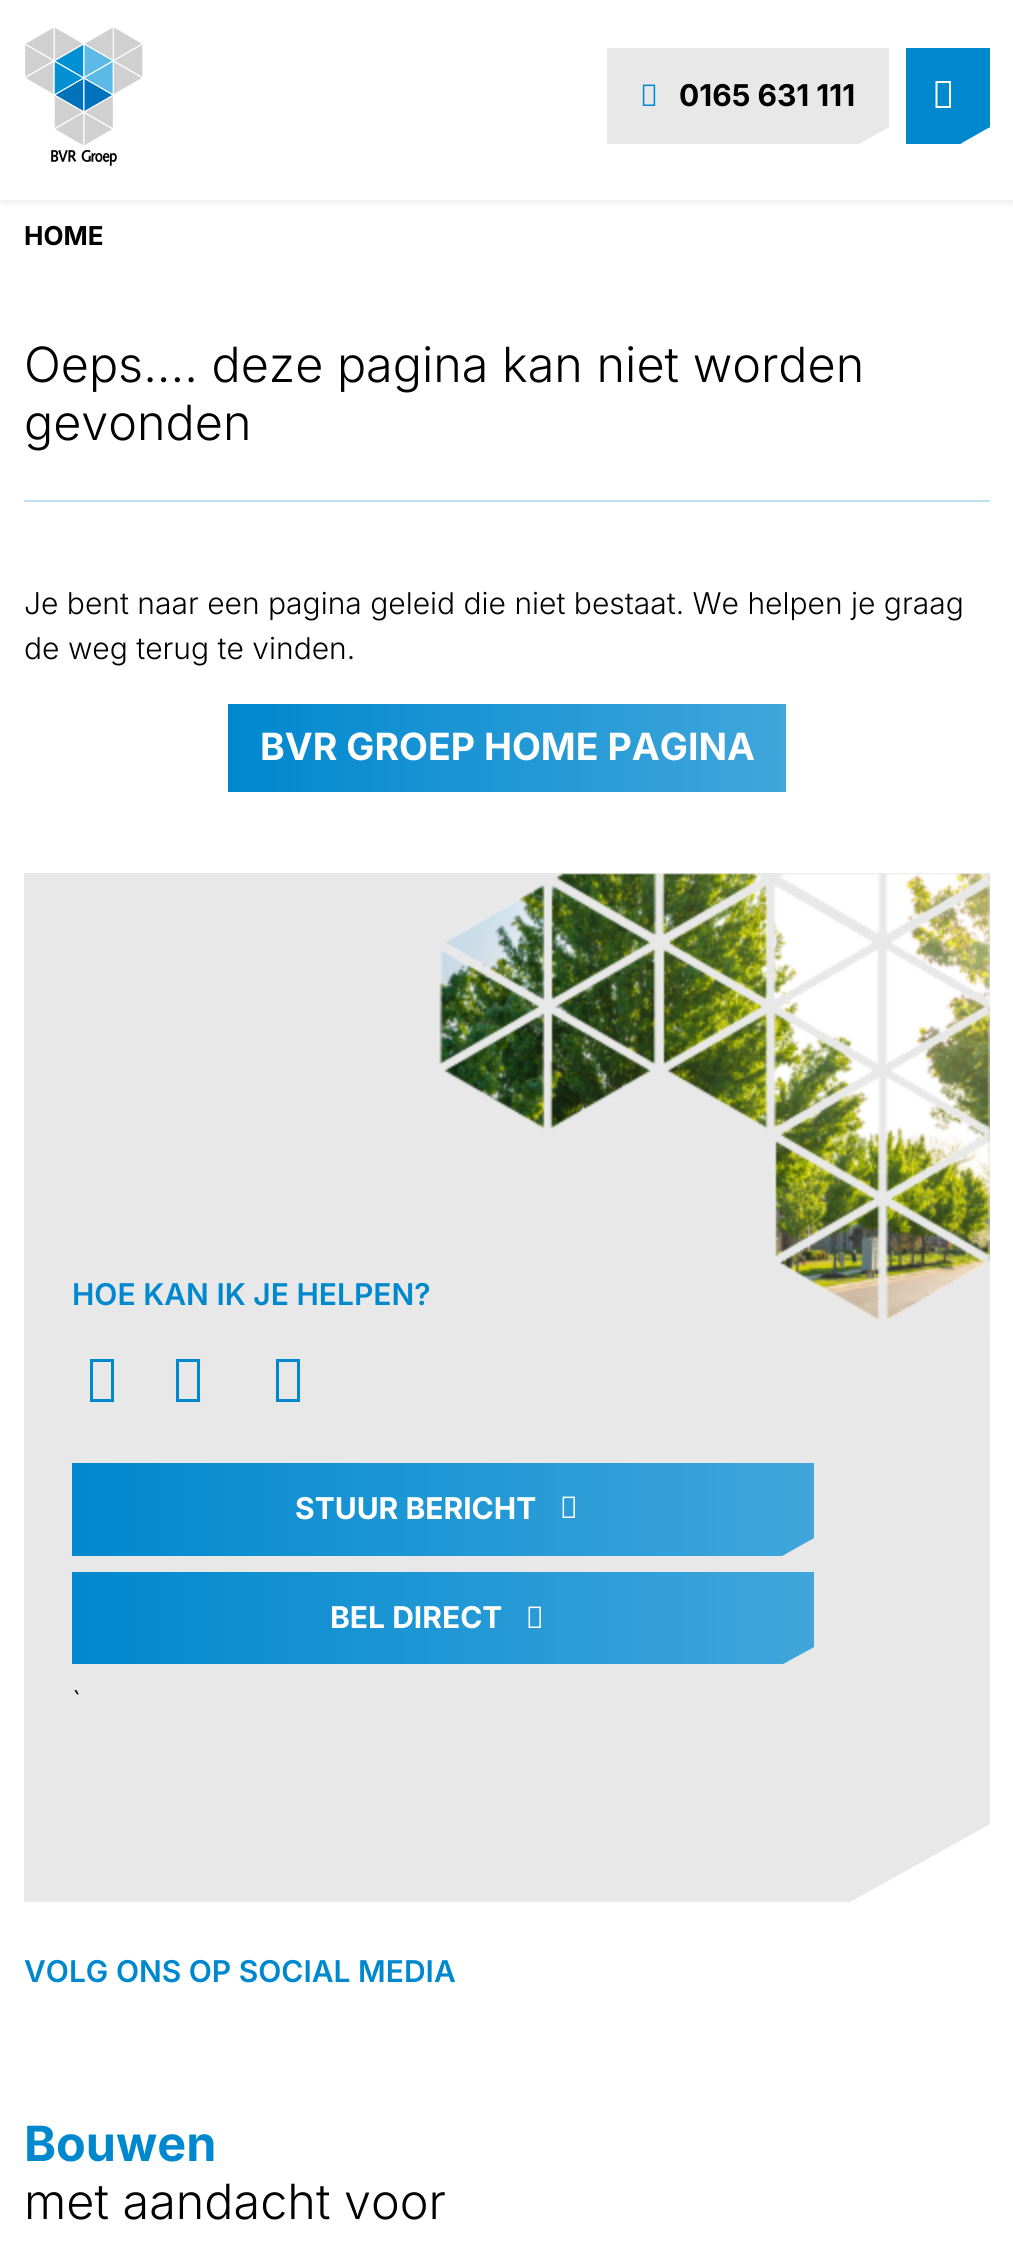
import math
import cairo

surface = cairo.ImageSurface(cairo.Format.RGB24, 1013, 2253)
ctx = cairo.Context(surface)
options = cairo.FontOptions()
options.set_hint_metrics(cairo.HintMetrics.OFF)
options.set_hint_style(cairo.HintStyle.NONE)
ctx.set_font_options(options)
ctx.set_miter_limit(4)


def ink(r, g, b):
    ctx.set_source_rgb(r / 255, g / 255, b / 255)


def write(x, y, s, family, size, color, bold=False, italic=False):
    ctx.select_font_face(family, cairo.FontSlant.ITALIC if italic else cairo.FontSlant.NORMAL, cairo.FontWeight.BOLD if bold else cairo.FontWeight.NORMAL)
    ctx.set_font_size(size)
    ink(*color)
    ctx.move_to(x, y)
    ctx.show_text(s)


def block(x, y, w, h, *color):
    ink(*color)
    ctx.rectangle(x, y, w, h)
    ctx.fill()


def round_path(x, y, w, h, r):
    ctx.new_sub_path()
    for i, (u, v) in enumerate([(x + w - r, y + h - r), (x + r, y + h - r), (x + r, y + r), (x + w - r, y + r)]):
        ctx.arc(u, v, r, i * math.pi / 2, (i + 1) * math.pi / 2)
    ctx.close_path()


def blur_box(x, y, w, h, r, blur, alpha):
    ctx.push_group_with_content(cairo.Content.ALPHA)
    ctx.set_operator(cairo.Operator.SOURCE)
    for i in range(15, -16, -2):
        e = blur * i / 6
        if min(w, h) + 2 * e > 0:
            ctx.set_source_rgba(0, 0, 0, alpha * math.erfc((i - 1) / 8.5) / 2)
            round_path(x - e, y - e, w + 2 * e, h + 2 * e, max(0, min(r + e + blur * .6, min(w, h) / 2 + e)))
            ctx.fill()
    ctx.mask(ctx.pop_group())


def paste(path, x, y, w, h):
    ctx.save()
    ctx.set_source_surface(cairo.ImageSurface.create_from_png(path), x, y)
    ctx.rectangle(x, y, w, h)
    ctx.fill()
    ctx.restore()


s1 = dict(family="Inter", size=30, color=(0, 0, 0), bold=True)
s2 = dict(family="Inter", size=26, color=(0, 0, 0), bold=True)
s3 = dict(family="Inter Light", size=48.5, color=(0, 0, 0))
s4 = dict(family="Inter Light", size=30, color=(0, 0, 0))
s5 = dict(family="Inter", size=37.5, color=(255, 255, 255), bold=True)
s6 = dict(family="Inter SemiBold", size=30, color=(0, 136, 207))
s7 = dict(family="Inter", size=30, color=(255, 255, 255), bold=True)
s8 = dict(family="Inter", size=48.5, color=(0, 136, 207), bold=True)

ink(255, 255, 255)
ctx.paint()
ctx.save()
ctx.rectangle(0, 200, 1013, 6)
ctx.clip()
ink(0, 0, 0)
blur_box(0, 4, 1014, 200, 0, 4, 0.07)
ctx.restore()
paste("pic1.png", 25, 27, 118, 139)
ink(232, 232, 232)
ctx.new_path()
ctx.move_to(607, 144)
ctx.line_to(607, 48)
ctx.line_to(889, 48)
ctx.line_to(889, 127)
ctx.line_to(859, 144)
ctx.close_path()
ctx.fill()
paste("pic2.png", 642, 84, 14, 22)
write(679, 106, "0165 631 111", **s1)
ink(0, 136, 207)
ctx.new_path()
ctx.move_to(906, 48)
ctx.line_to(906, 144)
ctx.line_to(960, 144)
ctx.line_to(990, 127)
ctx.line_to(990, 48)
ctx.close_path()
ctx.fill()
ctx.new_path()
ctx.move_to(906, 48)
ctx.line_to(906, 144)
ctx.line_to(960, 144)
ctx.line_to(963, 142)
ctx.line_to(908, 142)
ctx.line_to(908, 50)
ctx.line_to(988, 50)
ctx.line_to(988, 128)
ctx.line_to(990, 127)
ctx.line_to(990, 48)
ctx.close_path()
ctx.fill()
ink(255, 255, 255)
ctx.new_path()
ctx.move_to(935.5, 108)
ctx.line_to(935.5, 81)
ctx.line_to(951, 81)
ctx.line_to(951, 108)
ctx.close_path()
ctx.move_to(937.5, 106)
ctx.line_to(949, 106)
ctx.line_to(949, 83)
ctx.line_to(937.5, 83)
ctx.close_path()
ctx.fill()
write(24, 245, "HOME", **s2)
write(24, 382, "Oeps.... deze pagina kan niet worden", **s3)
write(24, 440, "gevonden", **s3)
block(24, 500, 966, 2, 191, 225, 243)
write(24, 614, "Je bent naar een pagina geleid die niet bestaat. We helpen je graag", **s4)
write(24, 659, "de weg terug te vinden.", **s4)
gradient = cairo.LinearGradient(228, 748, 786, 748)
gradient.add_color_stop_rgba(0, 0, 0.533, 0.812, 1)
gradient.add_color_stop_rgba(1, 0.251, 0.651, 0.859, 1)
ctx.set_source(gradient)
ctx.rectangle(228, 704, 558, 88)
ctx.fill()
write(260, 760, "BVR GROEP HOME PAGINA", **s5)
ink(232, 232, 232)
ctx.new_path()
ctx.move_to(24, 873)
ctx.line_to(24, 1902)
ctx.line_to(850, 1902)
ctx.line_to(990, 1824)
ctx.line_to(990, 873)
ctx.close_path()
ctx.fill()
paste("pic3.png", 439, 873, 551, 463)
write(72, 1305, "HOE KAN IK JE HELPEN?", **s6)
ctx.new_path()
ctx.move_to(90, 1402)
ctx.line_to(90, 1359)
ctx.line_to(114, 1359)
ctx.line_to(114, 1402)
ctx.close_path()
ctx.move_to(93, 1399)
ctx.line_to(111, 1399)
ctx.line_to(111, 1362)
ctx.line_to(93, 1362)
ctx.close_path()
ctx.fill()
ctx.new_path()
ctx.move_to(176, 1402)
ctx.line_to(176, 1359)
ctx.line_to(200, 1359)
ctx.line_to(200, 1402)
ctx.close_path()
ctx.move_to(179, 1399)
ctx.line_to(197, 1399)
ctx.line_to(197, 1362)
ctx.line_to(179, 1362)
ctx.close_path()
ctx.fill()
ctx.new_path()
ctx.move_to(276, 1402)
ctx.line_to(276, 1359)
ctx.line_to(300, 1359)
ctx.line_to(300, 1402)
ctx.close_path()
ctx.move_to(279, 1399)
ctx.line_to(297, 1399)
ctx.line_to(297, 1362)
ctx.line_to(279, 1362)
ctx.close_path()
ctx.fill()
ctx.new_path()
ctx.move_to(72, 1463)
ctx.line_to(72, 1556)
ctx.line_to(782, 1556)
ctx.line_to(814, 1538)
ctx.line_to(814, 1463)
ctx.close_path()
ctx.fill()
gradient = cairo.LinearGradient(72, 1509, 814, 1509)
gradient.add_color_stop_rgba(0, 1, 1, 1, 0)
gradient.add_color_stop_rgba(1, 1, 1, 1, 0.25)
ctx.set_source(gradient)
ctx.new_path()
ctx.move_to(72, 1463)
ctx.line_to(72, 1556)
ctx.line_to(782, 1556)
ctx.line_to(814, 1538)
ctx.line_to(814, 1463)
ctx.close_path()
ctx.fill()
write(295, 1519, "STUUR BERICHT", **s7)
paste("pic4.png", 562, 1496, 13, 22)
ink(0, 136, 207)
ctx.new_path()
ctx.move_to(72, 1572)
ctx.line_to(72, 1664)
ctx.line_to(783, 1664)
ctx.line_to(814, 1647)
ctx.line_to(814, 1572)
ctx.close_path()
ctx.fill()
gradient = cairo.LinearGradient(72, 1618, 814, 1618)
gradient.add_color_stop_rgba(0, 1, 1, 1, 0)
gradient.add_color_stop_rgba(1, 1, 1, 1, 0.25)
ctx.set_source(gradient)
ctx.new_path()
ctx.move_to(72, 1572)
ctx.line_to(72, 1664)
ctx.line_to(783, 1664)
ctx.line_to(814, 1647)
ctx.line_to(814, 1572)
ctx.close_path()
ctx.fill()
write(330, 1628, "BEL DIRECT", **s7)
paste("pic5.png", 528, 1606, 13, 22)
write(72, 1713, "`", **s4)
write(24, 1982, "VOLG ONS OP SOCIAL MEDIA", **s6)
write(24, 2161, "Bouwen", **s8)
write(24, 2219, "met aandacht voor", **s3)
surface.write_to_png("screenshot.png")
